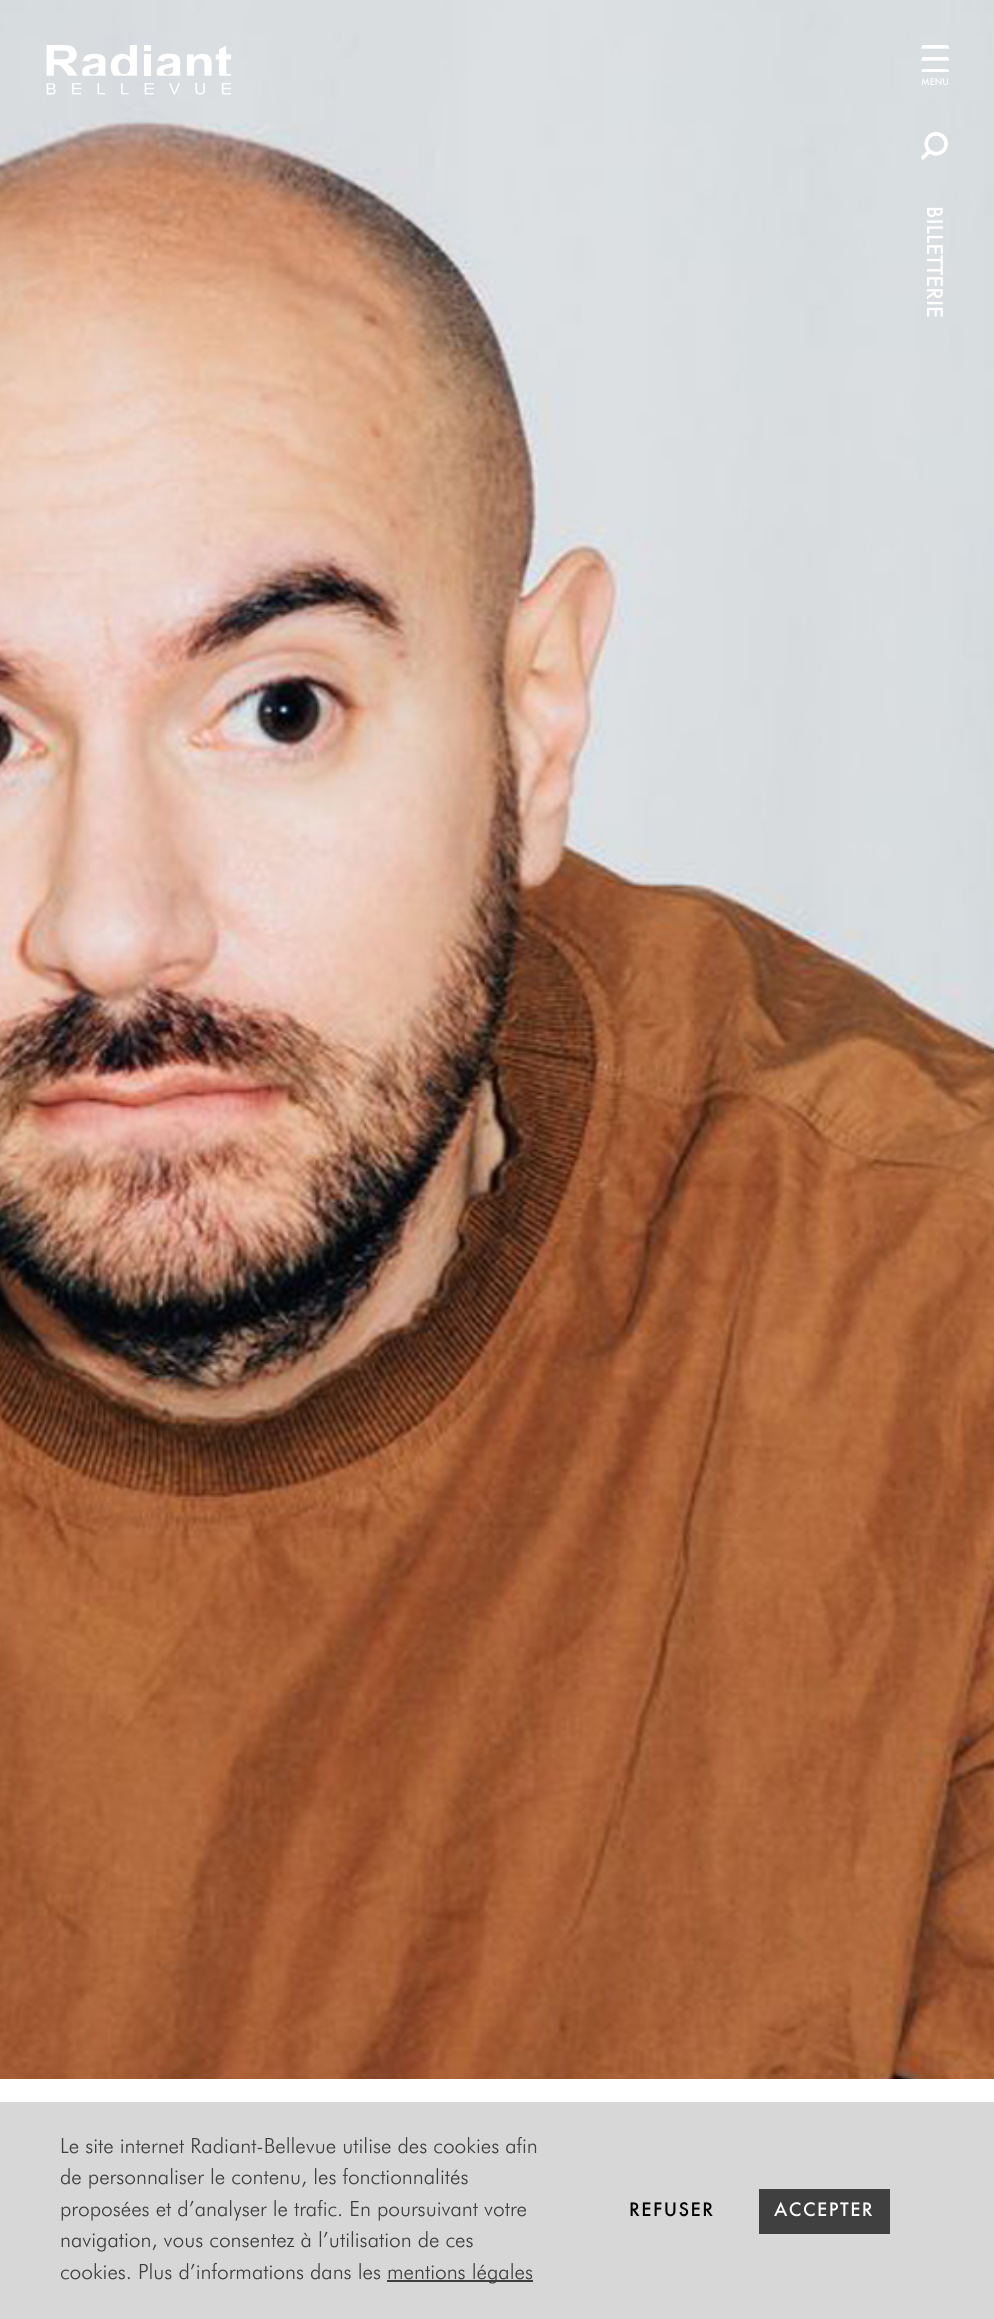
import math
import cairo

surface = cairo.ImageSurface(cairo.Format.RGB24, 994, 2319)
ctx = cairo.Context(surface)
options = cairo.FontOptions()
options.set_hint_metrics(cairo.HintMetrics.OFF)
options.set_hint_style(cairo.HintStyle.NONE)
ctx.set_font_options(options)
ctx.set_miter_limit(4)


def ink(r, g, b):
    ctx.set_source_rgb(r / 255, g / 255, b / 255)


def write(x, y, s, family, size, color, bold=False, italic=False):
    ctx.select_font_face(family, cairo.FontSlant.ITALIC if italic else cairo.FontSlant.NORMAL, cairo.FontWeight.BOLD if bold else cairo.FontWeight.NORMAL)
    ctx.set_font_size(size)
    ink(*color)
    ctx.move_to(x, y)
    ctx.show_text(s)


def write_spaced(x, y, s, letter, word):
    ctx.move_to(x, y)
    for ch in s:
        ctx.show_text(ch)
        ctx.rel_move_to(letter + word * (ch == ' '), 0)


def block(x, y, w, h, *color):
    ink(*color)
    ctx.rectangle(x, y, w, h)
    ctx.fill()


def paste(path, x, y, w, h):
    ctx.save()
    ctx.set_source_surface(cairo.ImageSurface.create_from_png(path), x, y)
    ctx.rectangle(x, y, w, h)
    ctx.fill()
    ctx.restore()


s1 = dict(family="Futura Medium", size=9, color=(255, 255, 255))
s2 = dict(family="Futura Medium", size=21, color=(255, 255, 255))
s3 = dict(family="Futura Light", size=21, color=(63, 63, 63))

ink(255, 255, 255)
ctx.paint()
paste("pic1.png", 0, 0, 994, 2079)
paste("pic2.png", 46, 45, 185, 50)
paste("pic3.png", 921, 45, 29, 27)
write(921, 85, "MENU", **s1)
paste("pic4.png", 921, 132, 27, 29)
ctx.save()
ctx.translate(927, 206)
ctx.rotate(90 * math.pi / 180)
write(0, 0, "BILLETTERIE", **s2)
ctx.restore()
block(0, 2102, 994, 217, 215, 215, 215)
write(60, 2153, "Le site internet Radiant-Bellevue utilise des cookies afin", **s3)
write(60, 2184, "de personnaliser le contenu, les fonctionnalités", **s3)
write(60, 2216, "proposées et d’analyser le trafic. En poursuivant votre", **s3)
write(60, 2247, "navigation, vous consentez à l’utilisation de ces", **s3)
write(60, 2279, "cookies. Plus d’informations dans les", **s3)
block(387, 2280, 146, 2, 63, 63, 63)
write(387, 2279, "mentions légales", **s3)
ctx.select_font_face("Futura Medium")
ctx.set_font_size(18)
ink(0, 0, 0)
write_spaced(629, 2216, "REFUSER", 1.5, 0)
block(759, 2189, 131, 45, 64, 64, 64)
ink(255, 255, 255)
write_spaced(774, 2216, "ACCEPTER", 1.5, 0)
surface.write_to_png("screenshot.png")
